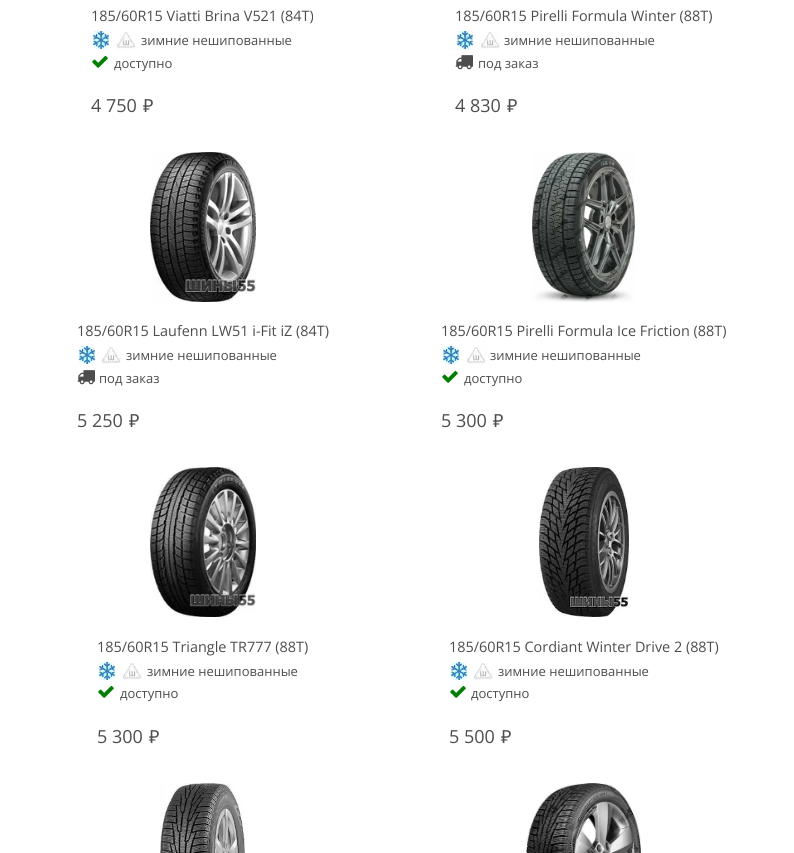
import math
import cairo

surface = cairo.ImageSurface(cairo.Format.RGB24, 794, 853)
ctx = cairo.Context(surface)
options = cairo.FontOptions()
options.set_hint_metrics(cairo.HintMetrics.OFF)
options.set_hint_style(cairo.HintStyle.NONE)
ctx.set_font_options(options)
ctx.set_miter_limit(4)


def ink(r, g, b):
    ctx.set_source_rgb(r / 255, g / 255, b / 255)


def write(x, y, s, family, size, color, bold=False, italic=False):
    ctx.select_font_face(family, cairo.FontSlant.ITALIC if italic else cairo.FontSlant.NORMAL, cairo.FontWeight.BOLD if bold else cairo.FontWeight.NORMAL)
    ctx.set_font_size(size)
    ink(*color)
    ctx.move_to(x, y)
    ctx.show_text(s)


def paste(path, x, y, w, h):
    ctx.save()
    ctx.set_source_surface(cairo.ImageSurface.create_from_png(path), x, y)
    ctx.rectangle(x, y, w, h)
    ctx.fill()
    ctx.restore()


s1 = dict(family="Open Sans", size=14.4, color=(77, 77, 77))
s2 = dict(family="Open Sans", size=13, color=(77, 77, 77))
s3 = dict(family="Open Sans", size=18, color=(77, 77, 77))
s4 = dict(family="Noto Sans", size=18, color=(77, 77, 77))

ink(255, 255, 255)
ctx.paint()
write(91, 21, "185/60R15 Viatti Brina V521 (84T)", **s1)
paste("pic1.png", 93, 31, 16, 18)
paste("pic2.png", 116, 32, 20, 17)
write(141, 45, "зимние нешипованные", **s2)
paste("pic3.png", 92, 55, 16, 13)
write(114, 68, "доступно", **s2)
write(91, 112, "4 750", **s3)
write(143, 112, "₽", **s4)
write(455, 21, "185/60R15 Pirelli Formula Winter (88T)", **s1)
paste("pic1.png", 457, 31, 16, 18)
paste("pic2.png", 480, 32, 20, 17)
write(504, 45, "зимние нешипованные", **s2)
paste("pic4.png", 455, 55, 18, 15)
write(478, 68, "под заказ", **s2)
write(455, 112, "4 830", **s3)
write(507, 112, "₽", **s4)
paste("pic5.png", 150, 152, 106, 150)
write(77, 336, "185/60R15 Laufenn LW51 i-Fit iZ (84T)", **s1)
paste("pic1.png", 79, 346, 16, 18)
paste("pic2.png", 101, 347, 20, 17)
write(126, 360, "зимние нешипованные", **s2)
paste("pic4.png", 77, 370, 18, 15)
write(99, 383, "под заказ", **s2)
write(77, 427, "5 250", **s3)
write(129, 427, "₽", **s4)
paste("pic6.png", 532, 152, 103, 150)
write(441, 336, "185/60R15 Pirelli Formula Ice Friction (88T)", **s1)
paste("pic1.png", 443, 346, 16, 18)
paste("pic2.png", 466, 347, 20, 17)
write(490, 360, "зимние нешипованные", **s2)
paste("pic3.png", 442, 370, 16, 13)
write(464, 383, "доступно", **s2)
write(441, 427, "5 300", **s3)
write(493, 427, "₽", **s4)
paste("pic7.png", 150, 467, 106, 150)
write(97, 652, "185/60R15 Triangle TR777 (88T)", **s1)
paste("pic1.png", 99, 662, 16, 18)
paste("pic2.png", 122, 663, 20, 17)
write(147, 676, "зимние нешипованные", **s2)
paste("pic3.png", 98, 685, 16, 13)
write(120, 698, "доступно", **s2)
write(97, 743, "5 300", **s3)
write(149, 743, "₽", **s4)
paste("pic8.png", 539, 467, 90, 150)
write(449, 652, "185/60R15 Cordiant Winter Drive 2 (88T)", **s1)
paste("pic1.png", 451, 662, 16, 18)
paste("pic2.png", 473, 663, 20, 17)
write(498, 676, "зимние нешипованные", **s2)
paste("pic3.png", 450, 685, 16, 13)
write(471, 698, "доступно", **s2)
write(449, 743, "5 500", **s3)
write(501, 743, "₽", **s4)
paste("pic9.png", 160, 783, 85, 70)
paste("pic10.png", 526, 783, 115, 70)
surface.write_to_png("screenshot.png")
